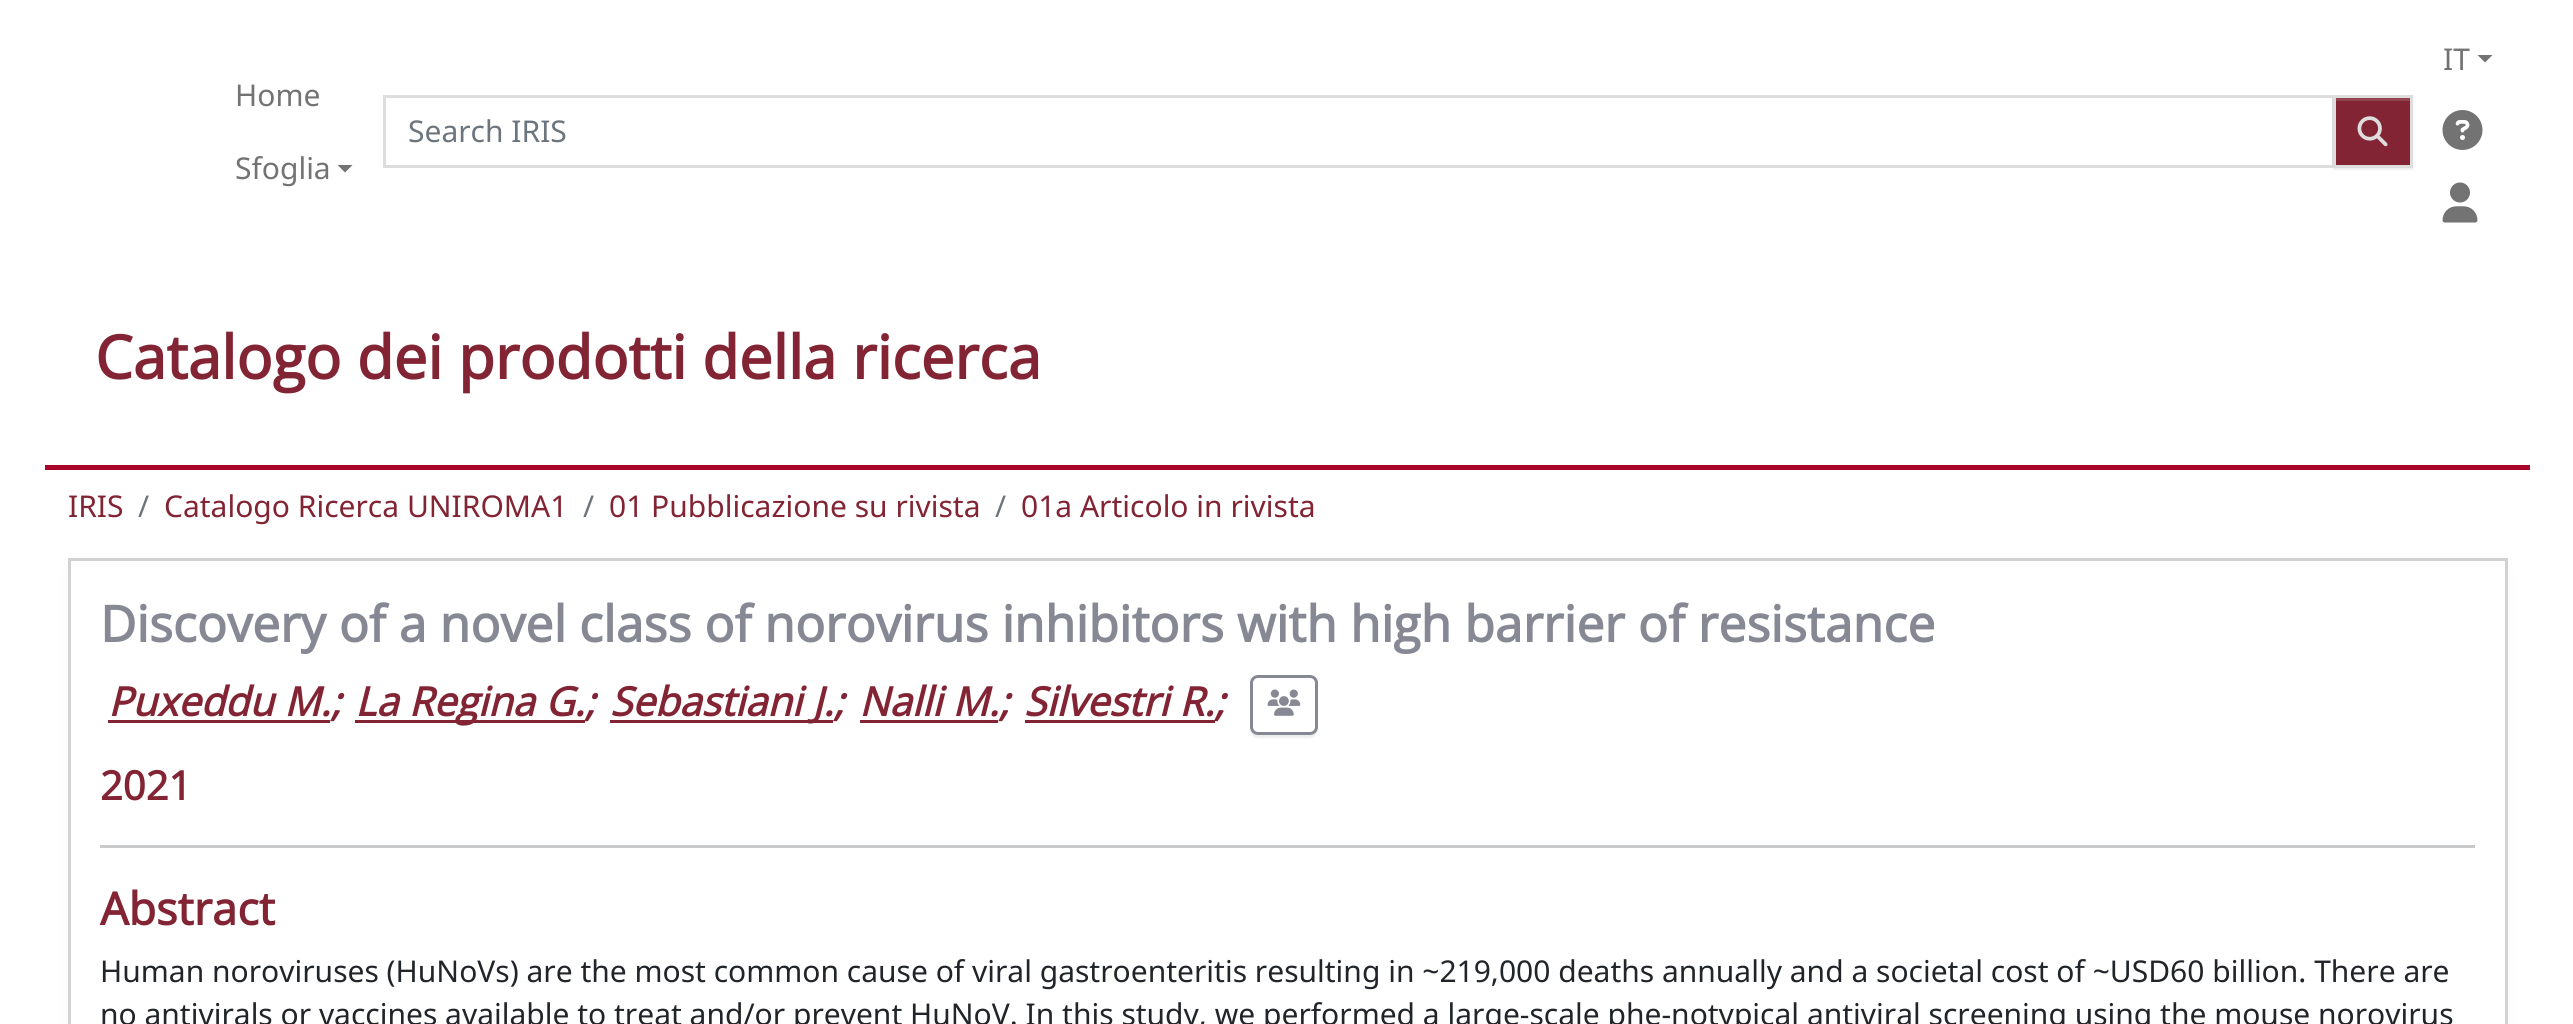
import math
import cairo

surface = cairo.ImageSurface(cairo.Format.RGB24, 2573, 1024)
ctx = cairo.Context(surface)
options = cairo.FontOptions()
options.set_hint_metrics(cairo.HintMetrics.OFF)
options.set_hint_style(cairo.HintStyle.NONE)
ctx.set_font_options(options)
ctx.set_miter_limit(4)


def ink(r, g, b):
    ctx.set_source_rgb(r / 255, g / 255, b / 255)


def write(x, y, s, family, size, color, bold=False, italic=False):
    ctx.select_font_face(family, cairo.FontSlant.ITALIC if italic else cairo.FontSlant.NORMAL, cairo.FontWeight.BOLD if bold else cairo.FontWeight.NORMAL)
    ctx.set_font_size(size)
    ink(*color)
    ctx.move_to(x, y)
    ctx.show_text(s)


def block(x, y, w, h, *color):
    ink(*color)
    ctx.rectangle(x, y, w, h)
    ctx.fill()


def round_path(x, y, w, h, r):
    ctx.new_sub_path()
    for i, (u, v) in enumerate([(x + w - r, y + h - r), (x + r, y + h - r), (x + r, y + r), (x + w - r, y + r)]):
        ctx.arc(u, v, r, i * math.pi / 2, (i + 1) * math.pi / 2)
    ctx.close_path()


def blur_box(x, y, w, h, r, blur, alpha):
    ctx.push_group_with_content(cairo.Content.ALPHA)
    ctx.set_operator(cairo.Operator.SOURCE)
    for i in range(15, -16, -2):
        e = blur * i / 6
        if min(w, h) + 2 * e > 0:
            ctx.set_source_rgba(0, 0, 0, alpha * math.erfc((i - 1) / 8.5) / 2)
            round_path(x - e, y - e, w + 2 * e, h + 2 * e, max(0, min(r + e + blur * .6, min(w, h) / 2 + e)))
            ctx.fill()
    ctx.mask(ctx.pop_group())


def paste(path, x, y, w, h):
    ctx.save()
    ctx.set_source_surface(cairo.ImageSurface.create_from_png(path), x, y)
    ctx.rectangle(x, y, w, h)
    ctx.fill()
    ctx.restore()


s1 = dict(family="Noto Sans", size=30, color=(115, 115, 115))
s2 = dict(family="Noto Sans", size=30, color=(108, 117, 125))
s3 = dict(family="Open Sans", size=60, color=(130, 36, 51), bold=True)
s4 = dict(family="Noto Sans", size=30, color=(130, 36, 51))
s5 = dict(family="Open Sans", size=50, color=(134, 136, 148), bold=True)
s6 = dict(family="Open Sans", size=40, color=(130, 36, 51), bold=True, italic=True)
s7 = dict(family="Open Sans", size=40, color=(130, 36, 51), bold=True)
s8 = dict(family="Open Sans", size=45, color=(130, 36, 51), bold=True)
s9 = dict(family="Noto Sans", size=30, color=(33, 37, 41))

ink(255, 255, 255)
ctx.paint()
write(2443, 70, "IT", **s1)
ctx.new_path()
ctx.move_to(2477.5, 55)
ctx.line_to(2492.5, 55)
ctx.line_to(2485, 62.5)
ctx.close_path()
ctx.fill()
paste("pic1.png", 2442, 110, 41, 40)
paste("pic2.png", 2442, 182, 36, 41)
write(235, 106, "Home", **s1)
write(235, 179, "Sfoglia", **s1)
ctx.new_path()
ctx.move_to(337.5, 165)
ctx.line_to(352.5, 165)
ctx.line_to(345, 172.5)
ctx.close_path()
ctx.fill()
ctx.rectangle(384.5, 96.5, 1949, 70)
ink(221, 221, 221)
ctx.set_line_width(3)
ctx.stroke()
write(408, 142, "Search IRIS", **s2)
ink(0, 0, 0)
blur_box(2333, 98, 80, 72, 0, 1, 0.07)
block(2336, 101, 74, 64, 130, 36, 51)
block(2335, 98, 75, 3, 149, 69, 82)
ctx.rectangle(2334.5, 96.5, 77, 70)
ink(221, 221, 221)
ctx.stroke()
paste("pic3.png", 2357, 116, 31, 31)
block(45, 465, 2485, 5, 169, 3, 41)
write(95, 379, "Catalogo dei prodotti della ricerca", **s3)
write(68, 517, "IRIS", **s4)
write(138, 517, "/", **s2)
write(164, 517, "Catalogo Ricerca UNIROMA1", **s4)
write(583, 517, "/", **s2)
write(609, 517, "01 Pubblicazione su rivista", **s4)
write(995, 517, "/", **s2)
write(1021, 517, "01a Articolo in rivista", **s4)
ink(238, 238, 238)
blur_box(73, 573, 2430, 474, 0, 7.5, 1)
block(71, 565, 2434, 459, 255, 255, 255)
ctx.rectangle(69.5, 559.5, 2437, 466)
ink(210, 210, 210)
ctx.stroke()
write(100, 642, "Discovery of a novel class of norovirus inhibitors with high barrier of resistance", **s5)
block(108, 720, 222, 3, 130, 36, 51)
write(108, 716, "Puxeddu M.;", **s6)
block(355, 720, 230, 3, 130, 36, 51)
write(355, 716, "La Regina G.;", **s6)
block(610, 720, 223, 3, 130, 36, 51)
write(610, 716, "Sebastiani J.;", **s6)
block(860, 720, 138, 3, 130, 36, 51)
write(859, 716, "Nalli M.;", **s6)
block(1025, 720, 190, 3, 130, 36, 51)
write(1024, 716, "Silvestri R.;", **s6)
ctx.save()
ctx.set_fill_rule(cairo.FillRule.EVEN_ODD)
ctx.new_path()
ctx.move_to(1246, 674)
ctx.line_to(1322, 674)
ctx.line_to(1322, 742)
ctx.line_to(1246, 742)
ctx.close_path()
ctx.move_to(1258, 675)
ctx.line_to(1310, 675)
ctx.curve_to(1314.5, 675, 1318, 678.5, 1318, 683)
ctx.line_to(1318, 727)
ctx.curve_to(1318, 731.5, 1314.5, 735, 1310, 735)
ctx.line_to(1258, 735)
ctx.curve_to(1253.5, 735, 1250, 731.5, 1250, 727)
ctx.line_to(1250, 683)
ctx.curve_to(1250, 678.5, 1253.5, 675, 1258, 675)
ctx.close_path()
ctx.clip()
ink(0, 0, 0)
blur_box(1250, 678, 68, 60, 8, 1, 0.07)
ctx.restore()
round_path(1251.5, 676.5, 65, 57, 6.5)
ink(134, 136, 148)
ctx.stroke()
paste("pic4.png", 1267, 689, 34, 27)
write(100, 800, "2021", **s7)
block(100, 845, 2375, 3, 200, 201, 202)
write(100, 925, "Abstract", **s8)
write(100, 982, "Human noroviruses (HuNoVs) are the most common cause of viral gastroenteritis resulting in ~219,000 deaths annually and a societal cost of ~USD60 billion. There are", **s9)
write(100, 1025, "no antivirals or vaccines available to treat and/or prevent HuNoV. In this study, we performed a large-scale phe-notypical antiviral screening using the mouse norovirus", **s9)
surface.write_to_png("screenshot.png")
